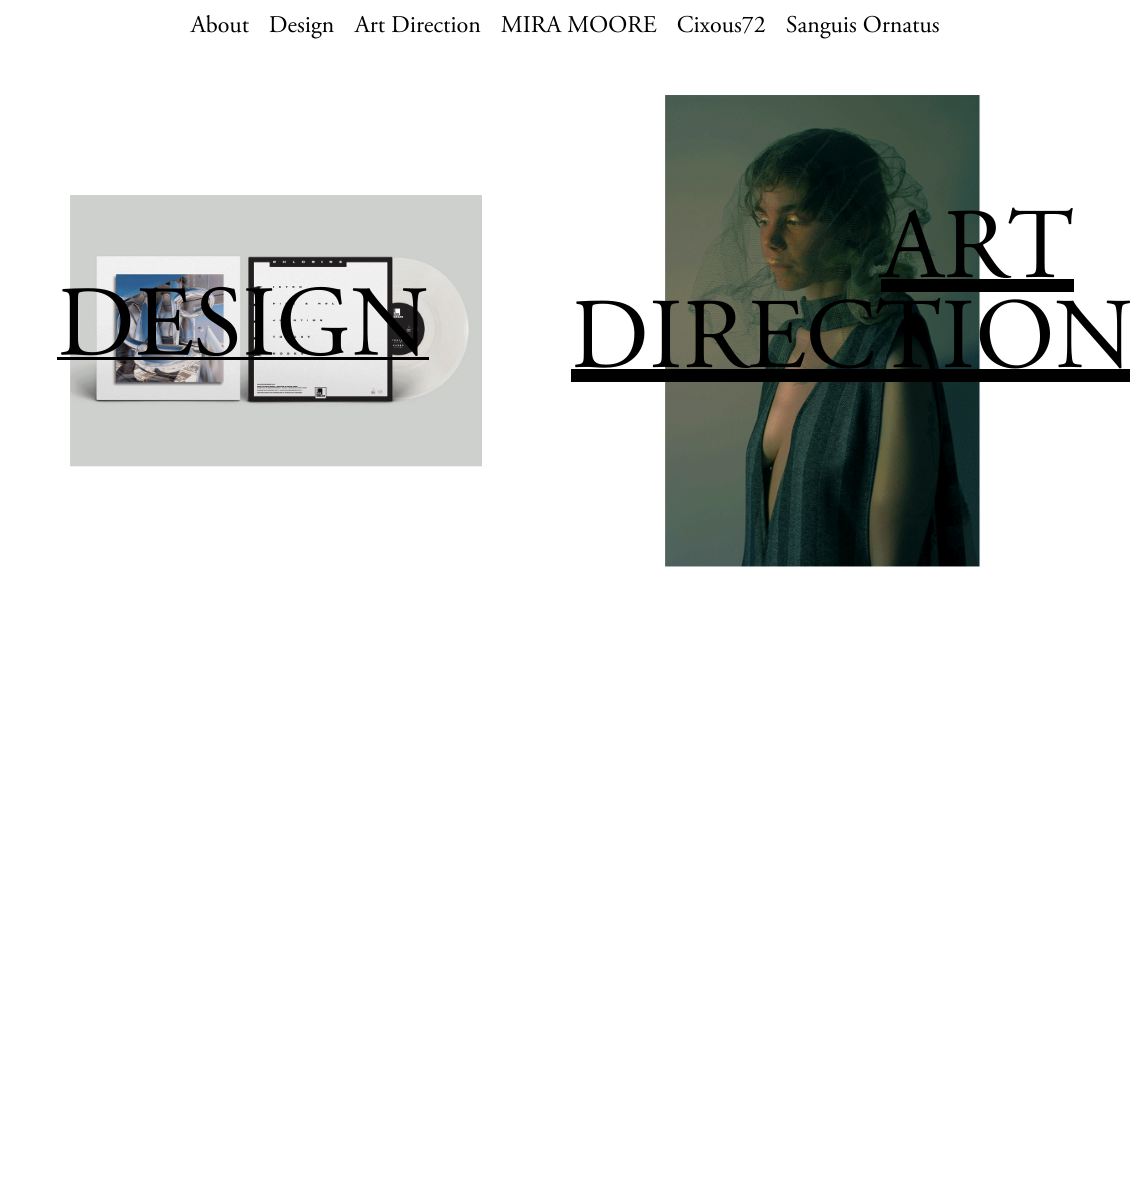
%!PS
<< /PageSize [1130 1201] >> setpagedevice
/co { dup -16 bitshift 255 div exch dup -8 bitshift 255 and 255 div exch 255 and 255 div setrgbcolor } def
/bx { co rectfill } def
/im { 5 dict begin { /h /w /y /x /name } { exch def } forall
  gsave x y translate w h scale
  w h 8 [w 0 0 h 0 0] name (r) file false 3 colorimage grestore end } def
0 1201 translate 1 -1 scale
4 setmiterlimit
0 0 1130 1201 16#FFFFFF bx
(media/1.raw) 190 14 59 19 im
(media/2.raw) 269 16 65 23 im
(media/3.raw) 354 15 127 18 im
(media/4.raw) 501 15 156 18 im
(media/5.raw) 677 15 88 19 im
(media/6.raw) 786 15 153 24 im
(media/7.raw) 70 195 412 272 im
(media/8.raw) 665 95 316 472 im
(media/9.raw) 61 286 366 71 im
57 357 372 3 16#000000 bx
(media/10.raw) 878 207 195 71 im
881 279 193 13 16#000000 bx
(media/11.raw) 575 297 555 72 im
571 369 559 13 16#000000 bx
showpage
